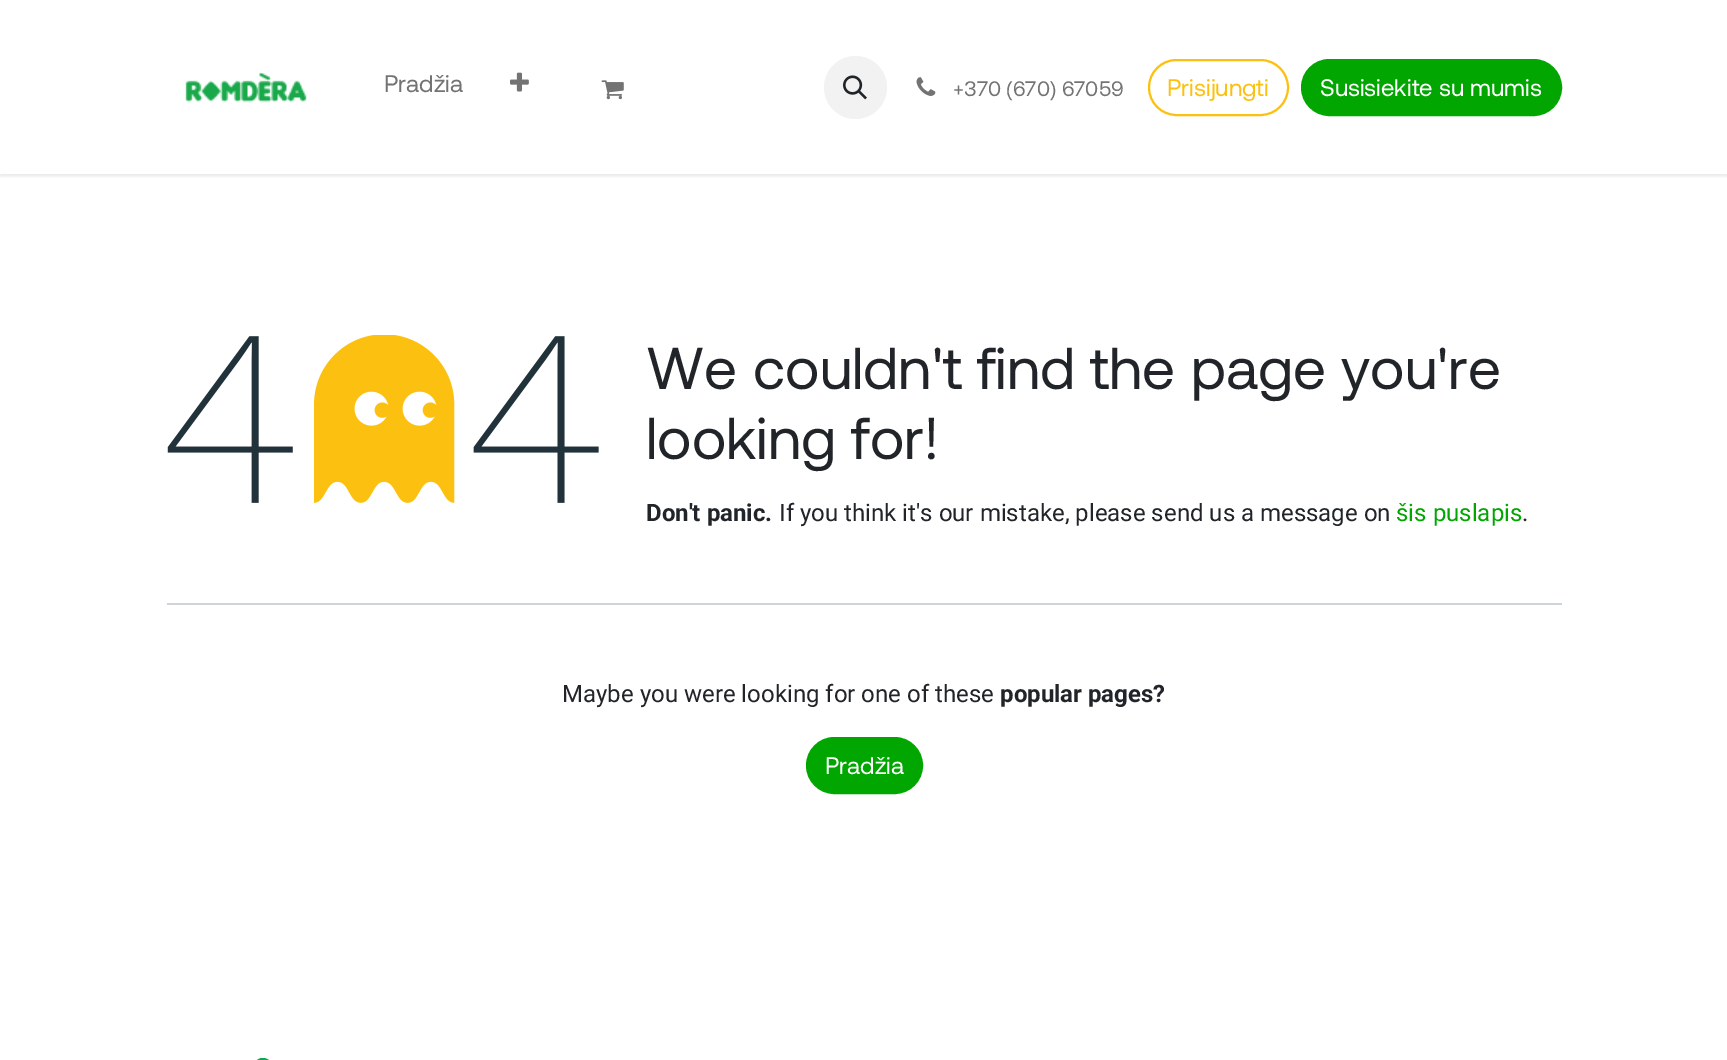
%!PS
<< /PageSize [1727 1060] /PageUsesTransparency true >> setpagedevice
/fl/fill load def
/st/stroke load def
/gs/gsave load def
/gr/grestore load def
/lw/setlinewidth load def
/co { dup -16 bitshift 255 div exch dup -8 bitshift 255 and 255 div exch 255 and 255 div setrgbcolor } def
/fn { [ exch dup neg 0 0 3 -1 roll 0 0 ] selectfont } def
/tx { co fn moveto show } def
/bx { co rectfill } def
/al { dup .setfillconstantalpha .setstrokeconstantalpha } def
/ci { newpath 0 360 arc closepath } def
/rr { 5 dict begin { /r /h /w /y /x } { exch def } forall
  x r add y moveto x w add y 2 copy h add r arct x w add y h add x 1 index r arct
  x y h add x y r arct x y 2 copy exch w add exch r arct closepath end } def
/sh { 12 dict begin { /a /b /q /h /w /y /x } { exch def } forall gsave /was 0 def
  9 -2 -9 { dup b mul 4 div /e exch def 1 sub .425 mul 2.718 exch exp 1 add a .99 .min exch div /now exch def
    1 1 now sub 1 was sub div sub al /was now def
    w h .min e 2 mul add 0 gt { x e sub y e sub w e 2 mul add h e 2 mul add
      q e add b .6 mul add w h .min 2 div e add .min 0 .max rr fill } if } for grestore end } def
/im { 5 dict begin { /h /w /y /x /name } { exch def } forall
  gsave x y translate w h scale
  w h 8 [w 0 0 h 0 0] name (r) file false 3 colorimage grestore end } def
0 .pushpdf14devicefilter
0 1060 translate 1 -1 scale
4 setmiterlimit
0 0 1727 1060 16#FFFFFF bx
gs
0 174 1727 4 rectclip
16#000000 co
0 2 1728 174 0 2 .1 sh
gr
(media/1.raw) 185 72 122 31 im
(media/2.raw) 510 72 19 20 im
(media/3.raw) 601 80 23 20 im
16#F2F2F2 co
855.5 87.5 31.5 ci fl
(media/4.raw) 843 75 24 25 im
(media/5.raw) 916 77 20 19 im
16#FCC110 co
2 lw
1149 60 139 55 27.5 rr st
16#01A601 co
1302 60 259 55 27.5 rr gs fl gr
st
(media/6.raw) 167 335 432 168 im
167 603 1395 2 16#CED4DA bx
16#01A601 co
807 738 115 55 27.5 rr gs fl gr
st
(media/7.raw) 256 1058 13 2 im
(Pradžia) 384 92 /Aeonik-Regular 24 16#737373 tx
(+370 \(670\) 67059) 953 96 /Aeonik-Regular 21 16#737373 tx
(Prisijungti) 1167 96 /Aeonik-Regular 24 16#FCC110 tx
(Susisiekite su mumis) 1320 96 /Aeonik-Regular 24 16#FFFFFF tx
(We couldn't find the page you're) 646 389 /Aeonik-Regular 58.9 16#212529 tx
(looking for!) 646 459 /Aeonik-Regular 58.9 16#212529 tx
(Don't panic.) 646 521 /Roboto-Bold 24 16#212529 tx
(If you think it's our mistake, please send us a message on) 779 521 /Roboto-Regular 24 16#212529 tx
(šis puslapis) 1396 521 /Roboto-Regular 24 16#01A601 tx
(.) 1522 521 /Roboto-Regular 24 16#212529 tx
(Maybe you were looking for one of these) 562 702 /Roboto-Regular 24 16#212529 tx
(popular pages?) 1000 702 /Roboto-Bold 24 16#212529 tx
(Pradžia) 825 774 /Aeonik-Regular 24 16#FFFFFF tx
.poppdf14devicefilter showpage
